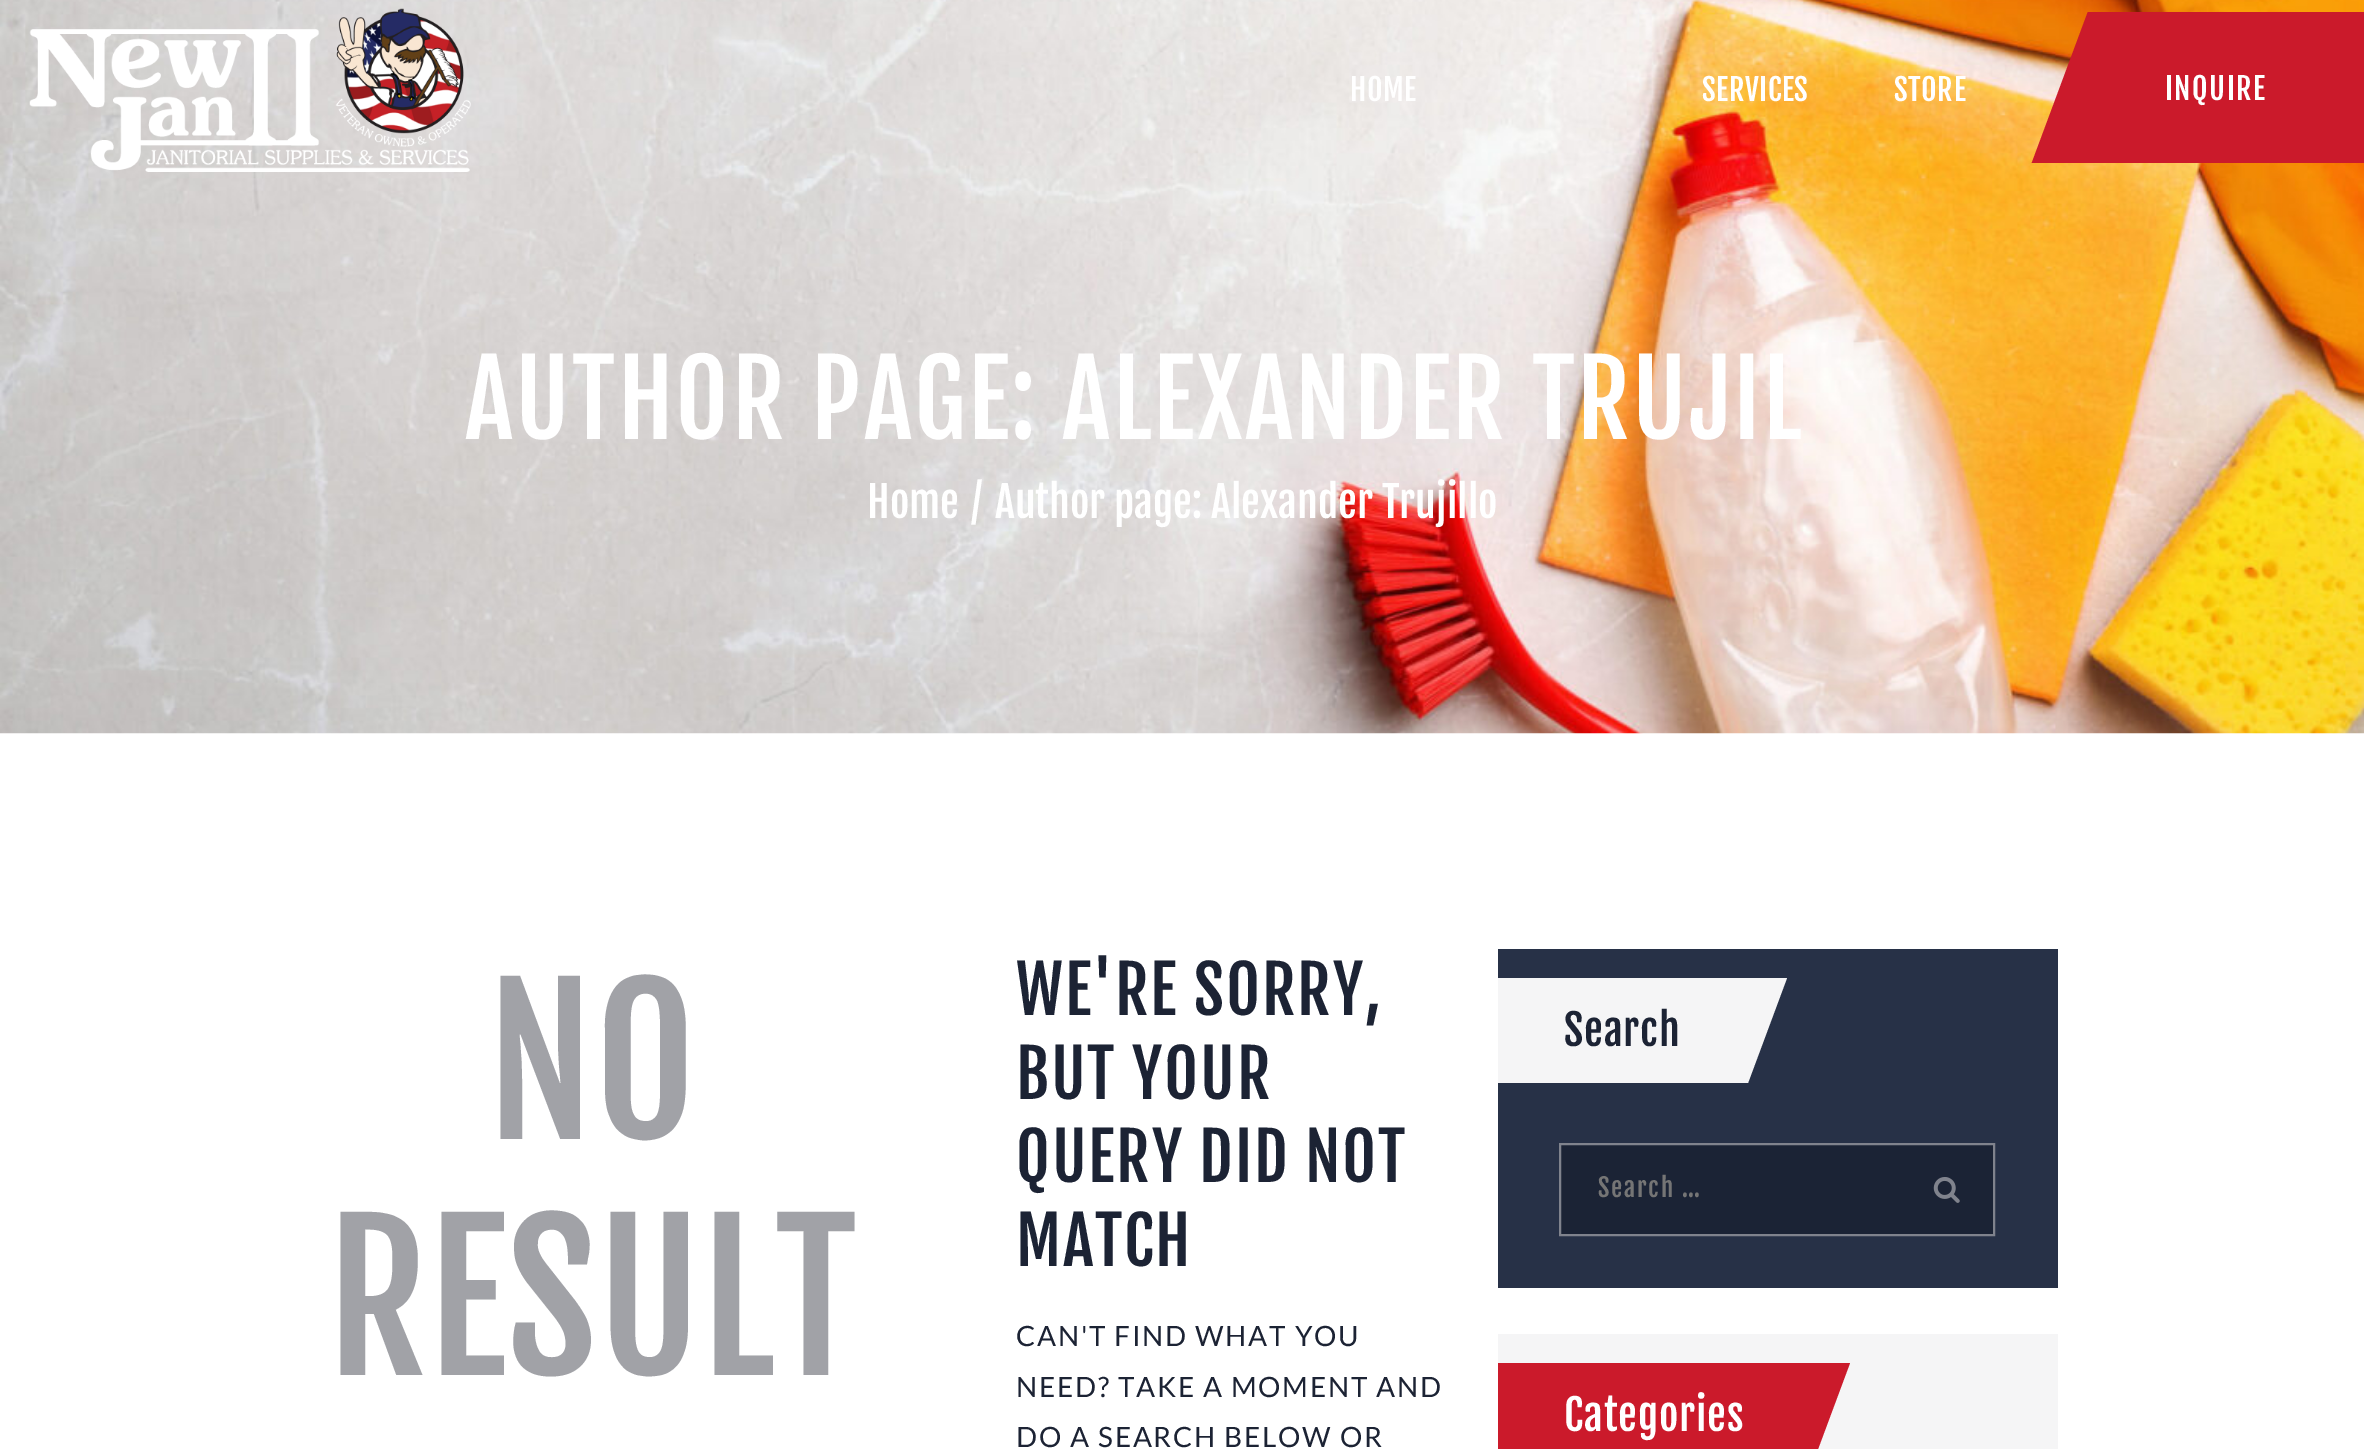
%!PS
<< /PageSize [2364 1449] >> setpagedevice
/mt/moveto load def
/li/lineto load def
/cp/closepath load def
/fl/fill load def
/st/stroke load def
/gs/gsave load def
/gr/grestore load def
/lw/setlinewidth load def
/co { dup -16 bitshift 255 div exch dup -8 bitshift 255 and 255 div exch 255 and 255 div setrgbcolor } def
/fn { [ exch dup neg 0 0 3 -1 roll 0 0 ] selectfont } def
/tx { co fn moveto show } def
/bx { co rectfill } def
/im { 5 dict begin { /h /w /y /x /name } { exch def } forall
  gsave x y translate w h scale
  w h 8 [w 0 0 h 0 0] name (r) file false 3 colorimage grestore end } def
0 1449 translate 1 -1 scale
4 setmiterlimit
0 0 2364 1449 16#FFFFFF bx
(media/1.raw) 0 0 2364 734 im
(media/2.raw) 29 8 442 167 im
gs
2028 12 336 151 rectclip
16#CB1A2B co
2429 173 mt 2028 173 li 2093 -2 li 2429 -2 li cp fl
gr
1498 949 560 339 16#273147 bx
16#F5F5F6 co
1498 978 mt 1787 978 li 1748 1083 li 1498 1083 li cp fl
16#1B2335 co
1560 1144 mt 1994 1144 li 1994 1235 li 1560 1235 li cp gs fl gr
16#80838D co
2 lw
st
(media/3.raw) 1933 1177 27 26 im
1498 1334 560 115 16#F5F5F6 bx
16#CB1A2B co
1498 1363 mt 1850 1363 li 1811 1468 li 1498 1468 li cp fl
/FjallaOne-Regular 30 fn
16#FFFFFF co
1350 101 mt .5 0 (HOME) ashow
1702 101 mt .5 0 (SERVICES) ashow
1894 101 mt .5 0 (STORE) ashow
2165 100 mt 1.5 0 (INQUIRE) ashow
/FjallaOne-Regular 102.75 fn
465 439 mt 2.25 0 (AUTHOR PAGE: ALEXANDER TRUJIL) ashow
(Home) 867 518 /FjallaOne-Regular 42 16#FFFFFF tx
(/) 971 518 /FjallaOne-Regular 42 16#FFFFFF tx
(Author page: Alexander Trujillo) 995 518 /FjallaOne-Regular 42 16#FFFFFF tx
(NO) 487 1139 /FjallaOne-Regular 196 16#A1A2A7 tx
(RESULT) 327 1375 /FjallaOne-Regular 196 16#A1A2A7 tx
/FjallaOne-Regular 65.25 fn
16#1C2334 co
1016 1015 mt 1.75 0 (WE'RE SORRY,) ashow
1016 1099 mt 1.75 0 (BUT YOUR) ashow
1016 1182 mt 1.75 0 (QUERY DID NOT) ashow
1016 1266 mt 1.75 0 (MATCH) ashow
/Lato-Regular 28 fn
1016 1346 mt 1.75 0 (CAN'T FIND WHAT YOU) ashow
1016 1397 mt 1.75 0 (NEED? TAKE A MOMENT AND) ashow
1016 1447 mt 1.75 0 (DO A SEARCH BELOW OR) ashow
/FjallaOne-Regular 42 fn
1564 1046 mt .9 0 (Search) ashow
/FjallaOne-Regular 25 fn
16#757575 co
1598 1197 mt 1.75 0 (Search …) ashow
/FjallaOne-Regular 42 fn
16#FFFFFF co
1564 1431 mt .9 0 (Categories) ashow
showpage
